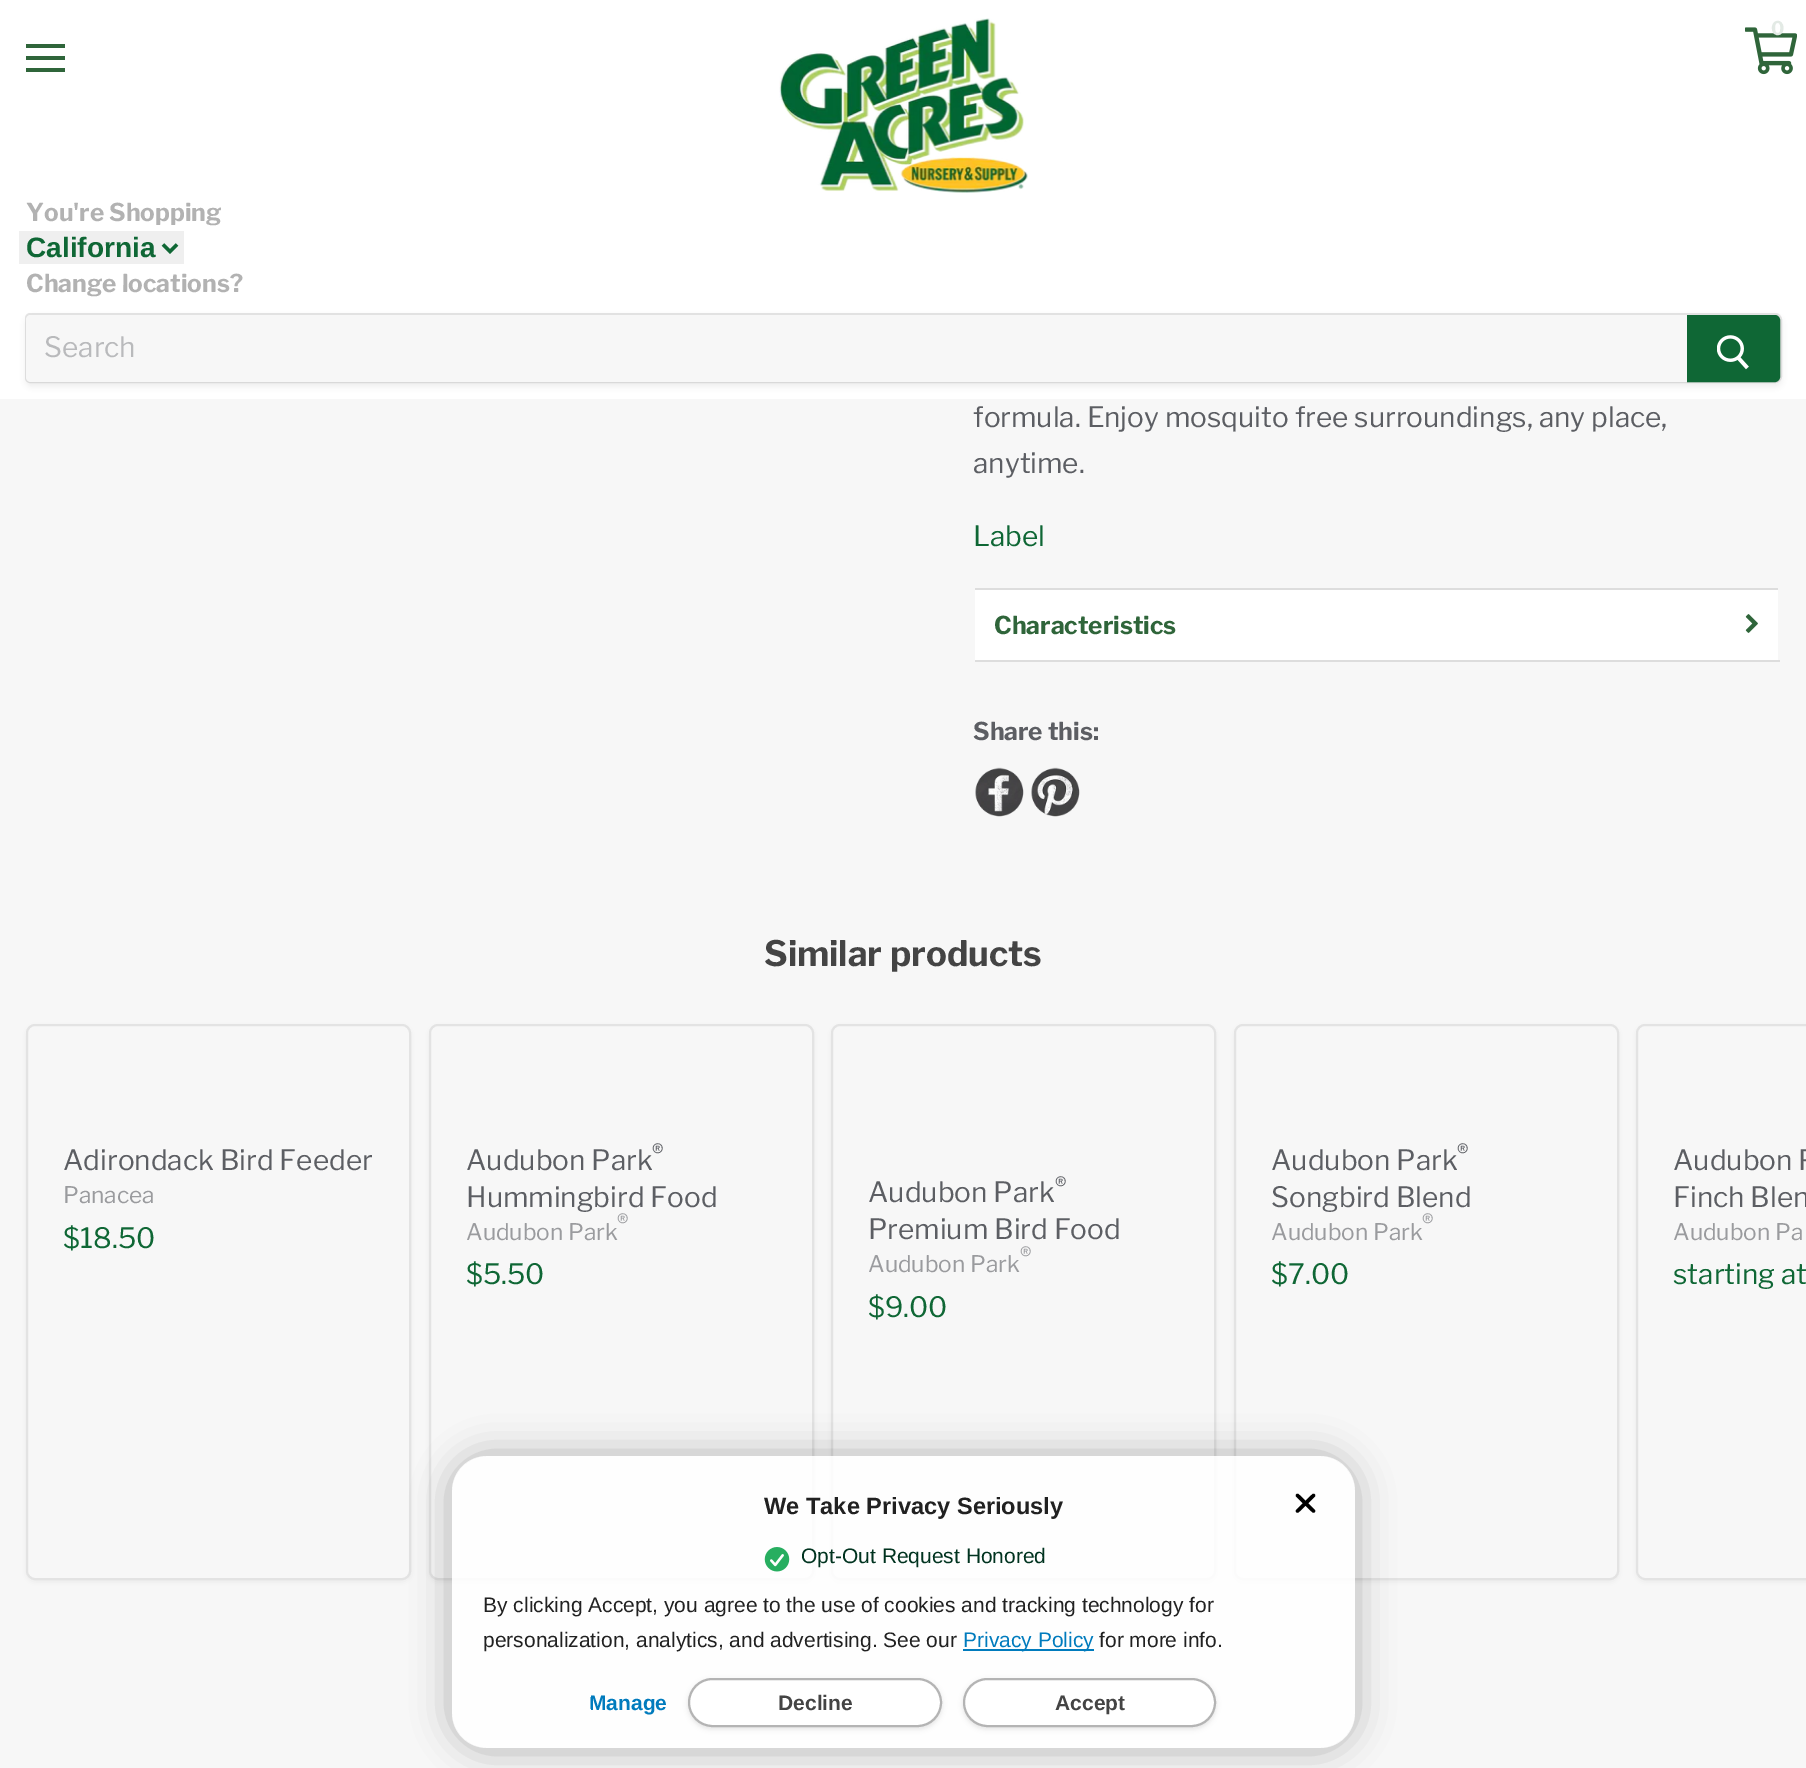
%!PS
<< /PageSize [1806 1768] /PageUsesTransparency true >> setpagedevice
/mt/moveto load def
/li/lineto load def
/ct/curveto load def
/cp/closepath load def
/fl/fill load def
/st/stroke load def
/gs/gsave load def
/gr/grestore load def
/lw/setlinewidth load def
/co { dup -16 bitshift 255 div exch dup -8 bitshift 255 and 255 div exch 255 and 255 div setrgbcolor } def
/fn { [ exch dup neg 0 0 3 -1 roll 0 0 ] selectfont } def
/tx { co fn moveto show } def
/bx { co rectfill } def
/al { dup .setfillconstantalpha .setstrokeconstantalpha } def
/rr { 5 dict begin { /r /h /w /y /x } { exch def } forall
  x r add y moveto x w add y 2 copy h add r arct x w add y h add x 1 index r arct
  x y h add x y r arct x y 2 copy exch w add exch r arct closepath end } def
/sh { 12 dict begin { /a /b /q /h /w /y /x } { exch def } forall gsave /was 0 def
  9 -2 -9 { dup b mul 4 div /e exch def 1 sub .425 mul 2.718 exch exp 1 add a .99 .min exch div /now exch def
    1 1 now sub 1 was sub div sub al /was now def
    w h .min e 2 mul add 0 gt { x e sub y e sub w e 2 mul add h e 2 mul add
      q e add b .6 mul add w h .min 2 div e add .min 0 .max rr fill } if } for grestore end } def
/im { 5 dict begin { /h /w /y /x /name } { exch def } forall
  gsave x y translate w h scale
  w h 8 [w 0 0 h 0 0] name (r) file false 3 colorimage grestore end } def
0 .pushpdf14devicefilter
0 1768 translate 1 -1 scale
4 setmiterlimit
0 0 1806 1768 16#F7F7F7 bx
0 0 1806 399 16#FFFFFF bx
(media/1.raw) 1745 27 52 48 im
26 44 39 4 16#2F653A bx
26 56 39 4 16#2F653A bx
26 68 39 4 16#2F653A bx
(media/2.raw) 779 18 249 175 im
19 231 165 33 16#EFEFEF bx
16#0F6735 co
3.5 lw
163 244.5 mt 170 251.5 li 177 244.5 li st
16#7B7B7B co
25 317 1757 70 7 2.5 .11 sh
0.2 al
2 lw
30 314 mt 1775 314 li 1778.5 314 1781 316.5 1781 320 ct 1781 376 li 1781 379.5 1778.5 382 1775 382 ct 30 382 li 28 382 26 380 26 378 ct 26 318 li 26 316 28 314 30 314 ct cp st
1 al
16#F7F7F7 co
31 315 mt 1687 315 li 1687 382 li 31 382 li 28 382 26 380 26 377 ct 26 320 li 26 317 28 315 31 315 ct cp fl
16#0F6735 co
1688 316 mt 1775 316 li 1777 316 1779 318 1779 320 ct 1779 377 li 1779 379 1777 381 1775 381 ct 1688 381 li cp gs fl gr
st
(media/3.raw) 1717 335 32 35 im
975 590 803 70 16#FFFFFF bx
973 588 807 2 16#DDDDDD bx
1778 588 2 2 16#F7F7F7 bx
973 660 807 2 16#DDDDDD bx
973 588 2 74 16#F7F7F7 bx
(media/4.raw) 1745 614 13 19 im
(media/5.raw) 975 767 49 50 im
(media/6.raw) 1031 767 49 50 im
16#7B7B7B co
26 1026 385 556 9 3.5 .11 sh
16#F7F7F7 co
27 1025 383 554 8 rr gs fl gr
16#E3E3E3 co
st
16#7B7B7B co
429 1026 385 556 9 3.5 .11 sh
16#F7F7F7 co
430 1025 383 554 8 rr gs fl gr
16#E3E3E3 co
st
16#7B7B7B co
831 1026 385 556 9 3.5 .11 sh
16#F7F7F7 co
832 1025 383 554 8 rr gs fl gr
16#E3E3E3 co
st
16#7B7B7B co
1234 1026 385 556 9 3.5 .11 sh
16#F7F7F7 co
1235 1025 383 554 8 rr gs fl gr
16#E3E3E3 co
st
16#7B7B7B co
1636 1026 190 556 9 3.5 .11 sh
16#F7F7F7 co
1645 1024 mt 1806 1024 li 1806 1580 li 1645 1580 li 1640 1580 1636 1576 1636 1571 ct 1636 1033 li 1636 1028 1640 1024 1645 1024 ct cp fl
16#E3E3E3 co
1637 1025 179 554 8 rr st
gs
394 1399 mt 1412 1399 li 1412 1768 li 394 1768 li cp 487 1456 mt 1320 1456 li 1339.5 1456 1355 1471.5 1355 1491 ct 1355 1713 li 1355 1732.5 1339.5 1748 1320 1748 ct 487 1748 li 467.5 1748 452 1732.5 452 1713 ct 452 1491 li 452 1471.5 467.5 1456 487 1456 ct cp eoclip newpath
16#000000 co
448 1453 910 299 39 17.5 .25 sh
gr
0.85 al
16#FFFFFF co
452 1456 903 292 35 rr fl
1 al
16#000000 co
3.5 lw
1 setlinecap
1 setlinejoin
1313.5 1495.5 mt 1297.5 1511 li 1297.5 1495.5 mt 1313.5 1511 li st
(media/7.raw) 764 1547 26 25 im
963 1649 131 2 16#007BBD bx
16#000000 co
688 1680 254 49 24.5 2.5 .1 sh
16#FFFFFF co
689 1679 252 47 23.5 rr gs fl gr
16#B4B4B4 co
2 lw
0 setlinecap
0 setlinejoin
st
16#000000 co
963 1680 253 49 24.5 2.5 .1 sh
16#FFFFFF co
964 1679 251 47 23.5 rr gs fl gr
16#B4B4B4 co
st
(0) 1771 35 /LibreFranklin-Bold 19 16#E3EAE5 tx
(You're Shopping) 26 221 /LibreFranklin-Bold 24.5 16#B2B2B2 tx
(California) 26 257 /LiberationSans-Bold 28 16#0F6735 tx
(Change locations?) 26 292 /LibreFranklin-Bold 24.5 16#B2B2B2 tx
(Search) 44 357 /LibreFranklin-Regular 28 16#B9BABC tx
(formula. Enjoy mosquito free surroundings, any place,) 973 427 /LibreFranklin-Regular 28 16#5C5E63 tx
(anytime.) 973 473 /LibreFranklin-Regular 28 16#5C5E63 tx
(Label) 973 546 /LibreFranklin-Regular 28 16#0F6735 tx
(Characteristics) 994 634 /LibreFranklin-Bold 24.5 16#2F653A tx
(Share this:) 973 740 /LibreFranklin-Bold 24.5 16#5C5E63 tx
(Similar products) 764 966 /LibreFranklin-Bold 35 16#444444 tx
(Adirondack Bird Feeder) 63 1170 /LibreFranklin-Regular 28 16#5C5E63 tx
(Panacea) 63 1203 /LibreFranklin-Regular 22.75 16#9A9B9E tx
($18.50) 63 1248 /LibreFranklin-Regular 28 16#0F6735 tx
(Audubon Park) 466 1170 /LibreFranklin-Regular 28 16#5C5E63 tx
(®) 652 1159 /LibreFranklin-Regular 21 16#5C5E63 tx
(Hummingbird Food) 466 1207 /LibreFranklin-Regular 28 16#5C5E63 tx
(®) 617 1229 /LibreFranklin-Regular 21 16#9A9B9E tx
(Audubon Park) 466 1240 /LibreFranklin-Regular 22.75 16#9A9B9E tx
($5.50) 466 1284 /LibreFranklin-Regular 28 16#0F6735 tx
(Audubon Park) 868 1202 /LibreFranklin-Regular 28 16#5C5E63 tx
(®) 1055 1192 /LibreFranklin-Regular 21 16#5C5E63 tx
(Premium Bird Food) 868 1239 /LibreFranklin-Regular 28 16#5C5E63 tx
(®) 1020 1262 /LibreFranklin-Regular 21 16#9A9B9E tx
(Audubon Park) 868 1272 /LibreFranklin-Regular 22.75 16#9A9B9E tx
($9.00) 868 1317 /LibreFranklin-Regular 28 16#0F6735 tx
(Audubon Park) 1271 1170 /LibreFranklin-Regular 28 16#5C5E63 tx
(®) 1457 1159 /LibreFranklin-Regular 21 16#5C5E63 tx
(Songbird Blend) 1271 1207 /LibreFranklin-Regular 28 16#5C5E63 tx
(®) 1422 1229 /LibreFranklin-Regular 21 16#9A9B9E tx
(Audubon Park) 1271 1240 /LibreFranklin-Regular 22.75 16#9A9B9E tx
($7.00) 1271 1284 /LibreFranklin-Regular 28 16#0F6735 tx
(Audubon P) 1673 1170 /LibreFranklin-Regular 28 16#5C5E63 tx
(Finch Blen) 1673 1207 /LibreFranklin-Regular 28 16#5C5E63 tx
(Audubon Pa) 1673 1240 /LibreFranklin-Regular 22.75 16#9A9B9E tx
(starting at) 1673 1284 /LibreFranklin-Regular 28 16#0F6735 tx
(We Take Privacy Seriously) 764 1514 /LiberationSans-Bold 23.6 16#212121 tx
(Opt-Out Request Honored) 801 1563 /LiberationSans-Regular 21 16#00331F tx
(By clicking Accept, you agree to the use of cookies and tracking technology for) 483 1612 /LiberationSans-Regular 21 16#212121 tx
(personalization, analytics, and advertising. See our) 483 1647 /LiberationSans-Regular 21 16#212121 tx
(Privacy Policy) 963 1647 /LiberationSans-Regular 21 16#007BBD tx
(for more info.) 1099 1647 /LiberationSans-Regular 21 16#212121 tx
gs
590 1680 77 46 23 rr clip newpath
(Manage) 589 1710 /LiberationSans-Bold 21 16#007BBD tx
gr
(Decline) 778 1710 /LiberationSans-Bold 21 16#444444 tx
(Accept) 1055 1710 /LiberationSans-Bold 21 16#444444 tx
.poppdf14devicefilter showpage
